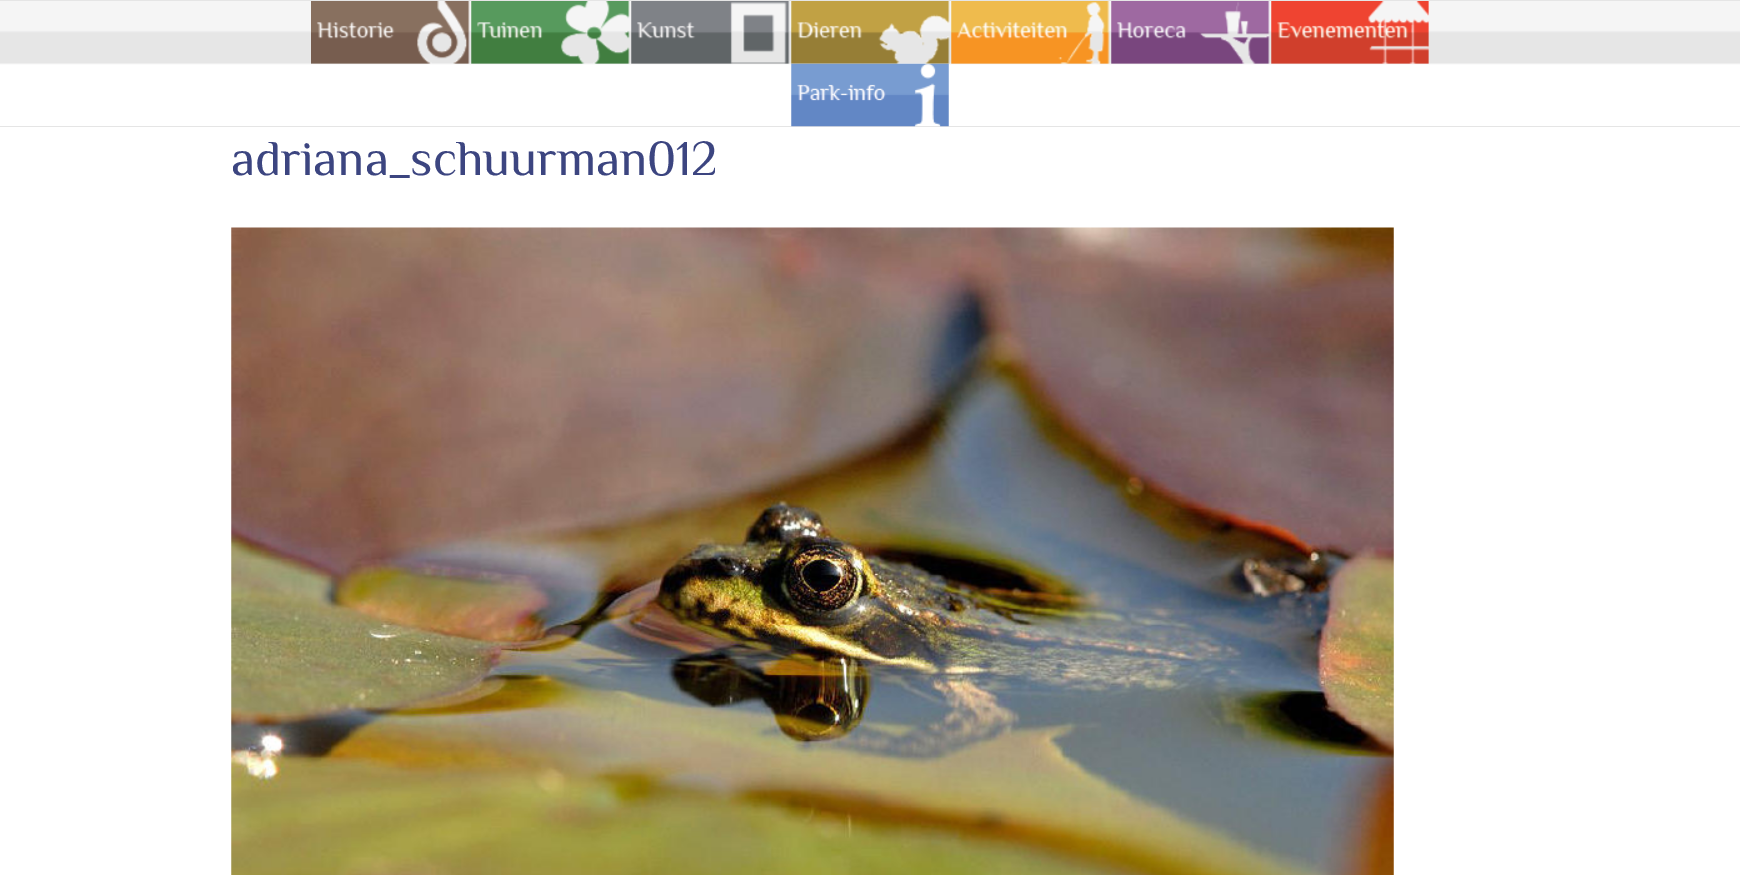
%!PS
<< /PageSize [1740 875] >> setpagedevice
/co { dup -16 bitshift 255 div exch dup -8 bitshift 255 and 255 div exch 255 and 255 div setrgbcolor } def
/fn { [ exch dup neg 0 0 3 -1 roll 0 0 ] selectfont } def
/tx { co fn moveto show } def
/bx { co rectfill } def
/im { 5 dict begin { /h /w /y /x /name } { exch def } forall
  gsave x y translate w h scale
  w h 8 [w 0 0 h 0 0] name (r) file false 3 colorimage grestore end } def
0 875 translate 1 -1 scale
4 setmiterlimit
0 0 1740 875 16#FFFFFF bx
0 0 1740 1 16#E5E5E5 bx
(media/1.raw) 0 1 1740 64 im
0 126 1740 1 16#E5E5E5 bx
(media/2.raw) 311 1 159 63 im
(media/3.raw) 471 1 159 63 im
(media/4.raw) 631 1 159 63 im
(media/5.raw) 791 1 159 63 im
(media/6.raw) 951 1 159 63 im
(media/7.raw) 1111 1 159 63 im
(media/8.raw) 1271 1 158 63 im
(media/9.raw) 791 63 158 64 im
(media/10.raw) 231 227 1163 648 im
(adriana_schuurman012) 231 175 /Philosopher-Regular 50 16#3C4580 tx
showpage
